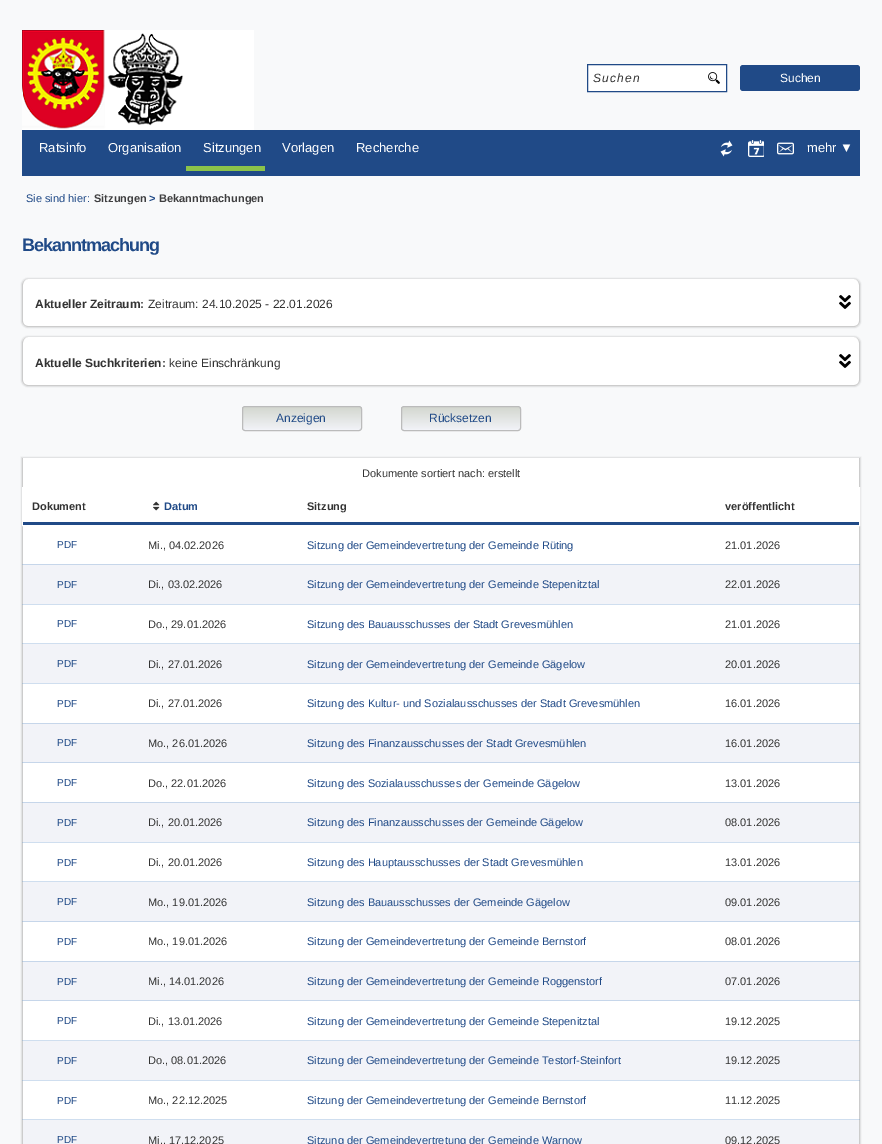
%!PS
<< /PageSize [882 1144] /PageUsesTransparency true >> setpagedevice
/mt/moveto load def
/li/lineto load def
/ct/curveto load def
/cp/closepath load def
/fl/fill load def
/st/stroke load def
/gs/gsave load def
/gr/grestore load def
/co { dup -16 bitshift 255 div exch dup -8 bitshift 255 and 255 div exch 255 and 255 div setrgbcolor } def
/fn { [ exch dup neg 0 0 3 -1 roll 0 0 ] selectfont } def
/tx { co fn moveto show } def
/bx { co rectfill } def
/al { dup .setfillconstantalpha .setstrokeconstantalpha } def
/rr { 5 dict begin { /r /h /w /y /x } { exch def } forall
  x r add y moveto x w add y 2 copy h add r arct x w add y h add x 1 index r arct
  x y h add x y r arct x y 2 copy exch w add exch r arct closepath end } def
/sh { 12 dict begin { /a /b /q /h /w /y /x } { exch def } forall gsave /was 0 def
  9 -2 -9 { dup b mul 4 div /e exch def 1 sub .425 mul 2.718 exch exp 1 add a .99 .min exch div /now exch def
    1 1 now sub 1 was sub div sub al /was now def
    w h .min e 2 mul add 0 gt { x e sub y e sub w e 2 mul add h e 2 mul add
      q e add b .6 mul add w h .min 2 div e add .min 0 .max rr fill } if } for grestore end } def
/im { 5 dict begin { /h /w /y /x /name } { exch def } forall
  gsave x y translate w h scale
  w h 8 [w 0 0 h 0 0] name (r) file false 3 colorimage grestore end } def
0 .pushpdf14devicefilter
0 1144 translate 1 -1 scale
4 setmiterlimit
0 0 882 1144 16#F8F9FA bx
(media/1.raw) 22 30 232 100 im
588 65 138 26 16#FFFFFF bx
(media/2.raw) 708 72 12 12 im
16#204A87 co
587.5 64.5 139 27 rectstroke
740 65 120 26 3 rr fl
22 130 838 46 16#204A87 bx
186 166 79 5 16#8BC34A bx
(media/3.raw) 720 140 13 17 im
(media/4.raw) 748 140 16 17 im
(media/5.raw) 777 142 17 13 im
16#000000 co
21 278 840 50 7 .5 .1 sh
16#FFFFFF co
22 279 838 48 6 rr fl
16#CCCCCC co
28 279 mt 854 279 li 857 279 860 282 860 285 ct 860 321 li 860 324 857 327 854 327 ct 28 327 li 25 327 22 324 22 321 ct 22 285 li 22 282 25 279 28 279 ct cp 28 279 mt 854 279 li 857 279 859 282 859 285 ct 859 321 li 859 324 857 326 854 326 ct 28 326 li 25 326 23 324 23 321 ct 23 285 li 23 282 25 279 28 279 ct cp eofill
(media/6.raw) 839 295 12 14 im
16#000000 co
21 336 840 51 7 .5 .1 sh
16#FFFFFF co
22 337 838 49 6 rr fl
16#CCCCCC co
28 337 mt 854 337 li 857 337 860 340 860 343 ct 860 380 li 860 383 857 386 854 386 ct 28 386 li 25 386 22 383 22 380 ct 22 343 li 22 340 25 337 28 337 ct cp 28 337 mt 854 337 li 857 337 859 340 859 343 ct 859 380 li 859 383 857 385 854 385 ct 28 385 li 25 385 23 383 23 380 ct 23 343 li 23 340 25 337 28 337 ct cp eofill
(media/6.raw) 839 354 12 14 im
gs
242 406 120 25 3 rr clip newpath
gs 242 407 mt 362 407 li 362 430 li 242 430 li cp clip newpath
<< /ShadingType 2 /ColorSpace /DeviceRGB /Coords [243 407 243 430] /Extend [true true] /Function << /FunctionType 2 /Domain [0 1] /C0 [.827 .843 .812] /C1 [.949 .953 .973] /N 1 >> >> shfill gr
gr
16#BBBBBB co
242.5 406.5 119 24 2.5 rr st
gs
401 406 120 25 3 rr clip newpath
gs 401 407 mt 521 407 li 521 430 li 401 430 li cp clip newpath
<< /ShadingType 2 /ColorSpace /DeviceRGB /Coords [402 407 402 430] /Extend [true true] /Function << /FunctionType 2 /Domain [0 1] /C0 [.827 .843 .812] /C1 [.949 .953 .973] /N 1 >> >> shfill gr
gr
401.5 406.5 119 24 2.5 rr st
16#000000 co
21 457 840 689 0 .5 .1 sh
23 458 836 661 16#FFFFFF bx
22 604 838 1 16#CFDEEF bx
22 683 838 1 16#CFDEEF bx
22 643 838 1 16#CFDEEF bx
22 842 838 1 16#CFDEEF bx
22 881 838 1 16#CFDEEF bx
22 1080 838 1 16#CFDEEF bx
22 1040 838 1 16#CFDEEF bx
22 1119 838 1 16#CFDEEF bx
859 458 1 686 16#CCCCCC bx
859 604 1 1 16#ADBDCD bx
859 564 1 1 16#ADBDCD bx
859 683 1 1 16#ADBDCD bx
859 643 1 1 16#ADBDCD bx
859 762 1 1 16#ADBDCD bx
859 723 1 1 16#ADBDCD bx
859 842 1 1 16#ADBDCD bx
859 802 1 1 16#ADBDCD bx
859 921 1 1 16#ADBDCD bx
859 881 1 1 16#ADBDCD bx
859 1000 1 1 16#ADBDCD bx
859 961 1 1 16#ADBDCD bx
859 1080 1 1 16#ADBDCD bx
859 1040 1 1 16#ADBDCD bx
859 1119 1 1 16#ADBDCD bx
22 458 1 686 16#CCCCCC bx
22 604 1 1 16#ADBDCD bx
22 564 1 1 16#ADBDCD bx
22 683 1 1 16#ADBDCD bx
22 643 1 1 16#ADBDCD bx
22 762 1 1 16#ADBDCD bx
22 723 1 1 16#ADBDCD bx
22 842 1 1 16#ADBDCD bx
22 802 1 1 16#ADBDCD bx
22 921 1 1 16#ADBDCD bx
22 881 1 1 16#ADBDCD bx
22 1000 1 1 16#ADBDCD bx
22 961 1 1 16#ADBDCD bx
22 1080 1 1 16#ADBDCD bx
22 1040 1 1 16#ADBDCD bx
22 1119 1 1 16#ADBDCD bx
16#FFFFFF co
22.5 487.5 837 38 rectstroke
23 522 836 3 16#204A87 bx
(media/7.raw) 153 501 7 10 im
23 565 836 39 16#F2F3F8 bx
23 564 836 1 16#C6D6EA bx
23 644 836 39 16#F2F3F8 bx
23 724 836 38 16#F2F3F8 bx
23 762 836 1 16#C6D6EA bx
23 723 836 1 16#C6D6EA bx
23 803 836 39 16#F2F3F8 bx
23 802 836 1 16#C6D6EA bx
23 882 836 39 16#F2F3F8 bx
23 921 836 1 16#C6D6EA bx
23 962 836 38 16#F2F3F8 bx
23 1000 836 1 16#C6D6EA bx
23 961 836 1 16#C6D6EA bx
23 1041 836 39 16#F2F3F8 bx
23 1120 836 24 16#F2F3F8 bx
/LiberationSans-Italic 12 fn
16#333333 co
593 82 mt 1.25 0 (Suchen) ashow
(Suchen) 780 82 /LiberationSans-Regular 12 16#FFFFFF tx
(Ratsinfo) 39 152 /LiberationSans-Regular 13 16#FFFFFF tx
(Organisation) 108 152 /LiberationSans-Regular 13 16#FFFFFF tx
(Sitzungen) 203 152 /LiberationSans-Regular 13 16#FFFFFF tx
(Vorlagen) 282 152 /LiberationSans-Regular 13 16#FFFFFF tx
(Recherche) 356 152 /LiberationSans-Regular 13 16#FFFFFF tx
(mehr ▼) 807 152 /LiberationSans-Regular 13 16#FFFFFF tx
(Sie sind hier:) 26 202 /LiberationSans-Regular 11 16#204A87 tx
(Sitzungen) 94 202 /LiberationSans-Bold 11 16#3E3E3F tx
(>) 149 202 /LiberationSans-Bold 11 16#204A87 tx
(Bekanntmachungen) 159 202 /LiberationSans-Bold 11 16#3E3E3F tx
/LiberationSans-Bold 18 fn
16#204A87 co
22 251 mt -1 0 (Bekanntmachung) ashow
(Aktueller Zeitraum:) 35 308 /LiberationSans-Bold 12 16#333333 tx
(Zeitraum: 24.10.2025 - 22.01.2026) 148 308 /LiberationSans-Regular 12 16#333333 tx
(Aktuelle Suchkriterien:) 35 367 /LiberationSans-Bold 12 16#333333 tx
(keine Einschränkung) 169 367 /LiberationSans-Regular 12 16#333333 tx
(Anzeigen) 276 422 /LiberationSans-Regular 12 16#204A87 tx
(Rücksetzen) 429 422 /LiberationSans-Regular 12 16#204A87 tx
(Dokumente sortiert nach: erstellt) 362 477 /LiberationSans-Regular 11 16#333333 tx
(Dokument) 32 510 /LiberationSans-Bold 11 16#333333 tx
(Datum) 164 510 /LiberationSans-Bold 11 16#204A87 tx
(Sitzung) 307 510 /LiberationSans-Bold 11 16#333333 tx
(veröffentlicht) 725 510 /LiberationSans-Bold 11 16#333333 tx
(PDF) 57 548 /LiberationSans-Regular 10 16#204A87 tx
(Mi., 04.02.2026) 148 549 /LiberationSans-Regular 11 16#333333 tx
(Sitzung der Gemeindevertretung der Gemeinde Rüting) 307 549 /LiberationSans-Regular 11 16#204A87 tx
(21.01.2026) 725 549 /LiberationSans-Regular 11 16#333333 tx
(PDF) 57 588 /LiberationSans-Regular 10 16#204A87 tx
(Di., 03.02.2026) 148 588 /LiberationSans-Regular 11 16#333333 tx
(Sitzung der Gemeindevertretung der Gemeinde Stepenitztal) 307 588 /LiberationSans-Regular 11 16#204A87 tx
(22.01.2026) 725 588 /LiberationSans-Regular 11 16#333333 tx
(PDF) 57 627 /LiberationSans-Regular 10 16#204A87 tx
(Do., 29.01.2026) 148 628 /LiberationSans-Regular 11 16#333333 tx
(Sitzung des Bauausschusses der Stadt Grevesmühlen) 307 628 /LiberationSans-Regular 11 16#204A87 tx
(21.01.2026) 725 628 /LiberationSans-Regular 11 16#333333 tx
(PDF) 57 667 /LiberationSans-Regular 10 16#204A87 tx
(Di., 27.01.2026) 148 668 /LiberationSans-Regular 11 16#333333 tx
(Sitzung der Gemeindevertretung der Gemeinde Gägelow) 307 668 /LiberationSans-Regular 11 16#204A87 tx
(20.01.2026) 725 668 /LiberationSans-Regular 11 16#333333 tx
(PDF) 57 707 /LiberationSans-Regular 10 16#204A87 tx
(Di., 27.01.2026) 148 707 /LiberationSans-Regular 11 16#333333 tx
(Sitzung des Kultur- und Sozialausschusses der Stadt Grevesmühlen) 307 707 /LiberationSans-Regular 11 16#204A87 tx
(16.01.2026) 725 707 /LiberationSans-Regular 11 16#333333 tx
(PDF) 57 746 /LiberationSans-Regular 10 16#204A87 tx
(Mo., 26.01.2026) 148 747 /LiberationSans-Regular 11 16#333333 tx
(Sitzung des Finanzausschusses der Stadt Grevesmühlen) 307 747 /LiberationSans-Regular 11 16#204A87 tx
(16.01.2026) 725 747 /LiberationSans-Regular 11 16#333333 tx
(PDF) 57 786 /LiberationSans-Regular 10 16#204A87 tx
(Do., 22.01.2026) 148 787 /LiberationSans-Regular 11 16#333333 tx
(Sitzung des Sozialausschusses der Gemeinde Gägelow) 307 787 /LiberationSans-Regular 11 16#204A87 tx
(13.01.2026) 725 787 /LiberationSans-Regular 11 16#333333 tx
(PDF) 57 826 /LiberationSans-Regular 10 16#204A87 tx
(Di., 20.01.2026) 148 826 /LiberationSans-Regular 11 16#333333 tx
(Sitzung des Finanzausschusses der Gemeinde Gägelow) 307 826 /LiberationSans-Regular 11 16#204A87 tx
(08.01.2026) 725 826 /LiberationSans-Regular 11 16#333333 tx
(PDF) 57 866 /LiberationSans-Regular 10 16#204A87 tx
(Di., 20.01.2026) 148 866 /LiberationSans-Regular 11 16#333333 tx
(Sitzung des Hauptausschusses der Stadt Grevesmühlen) 307 866 /LiberationSans-Regular 11 16#204A87 tx
(13.01.2026) 725 866 /LiberationSans-Regular 11 16#333333 tx
(PDF) 57 905 /LiberationSans-Regular 10 16#204A87 tx
(Mo., 19.01.2026) 148 906 /LiberationSans-Regular 11 16#333333 tx
(Sitzung des Bauausschusses der Gemeinde Gägelow) 307 906 /LiberationSans-Regular 11 16#204A87 tx
(09.01.2026) 725 906 /LiberationSans-Regular 11 16#333333 tx
(PDF) 57 945 /LiberationSans-Regular 10 16#204A87 tx
(Mo., 19.01.2026) 148 945 /LiberationSans-Regular 11 16#333333 tx
(Sitzung der Gemeindevertretung der Gemeinde Bernstorf) 307 945 /LiberationSans-Regular 11 16#204A87 tx
(08.01.2026) 725 945 /LiberationSans-Regular 11 16#333333 tx
(PDF) 57 985 /LiberationSans-Regular 10 16#204A87 tx
(Mi., 14.01.2026) 148 985 /LiberationSans-Regular 11 16#333333 tx
(Sitzung der Gemeindevertretung der Gemeinde Roggenstorf) 307 985 /LiberationSans-Regular 11 16#204A87 tx
(07.01.2026) 725 985 /LiberationSans-Regular 11 16#333333 tx
(PDF) 57 1024 /LiberationSans-Regular 10 16#204A87 tx
(Di., 13.01.2026) 148 1025 /LiberationSans-Regular 11 16#333333 tx
(Sitzung der Gemeindevertretung der Gemeinde Stepenitztal) 307 1025 /LiberationSans-Regular 11 16#204A87 tx
(19.12.2025) 725 1025 /LiberationSans-Regular 11 16#333333 tx
(PDF) 57 1064 /LiberationSans-Regular 10 16#204A87 tx
(Do., 08.01.2026) 148 1064 /LiberationSans-Regular 11 16#333333 tx
(Sitzung der Gemeindevertretung der Gemeinde Testorf-Steinfort) 307 1064 /LiberationSans-Regular 11 16#204A87 tx
(19.12.2025) 725 1064 /LiberationSans-Regular 11 16#333333 tx
(PDF) 57 1104 /LiberationSans-Regular 10 16#204A87 tx
(Mo., 22.12.2025) 148 1104 /LiberationSans-Regular 11 16#333333 tx
(Sitzung der Gemeindevertretung der Gemeinde Bernstorf) 307 1104 /LiberationSans-Regular 11 16#204A87 tx
(11.12.2025) 725 1104 /LiberationSans-Regular 11 16#333333 tx
(PDF) 57 1143 /LiberationSans-Regular 10 16#204A87 tx
(Mi., 17.12.2025) 148 1144 /LiberationSans-Regular 11 16#333333 tx
(Sitzung der Gemeindevertretung der Gemeinde Warnow) 307 1144 /LiberationSans-Regular 11 16#204A87 tx
(09.12.2025) 725 1144 /LiberationSans-Regular 11 16#333333 tx
.poppdf14devicefilter showpage
